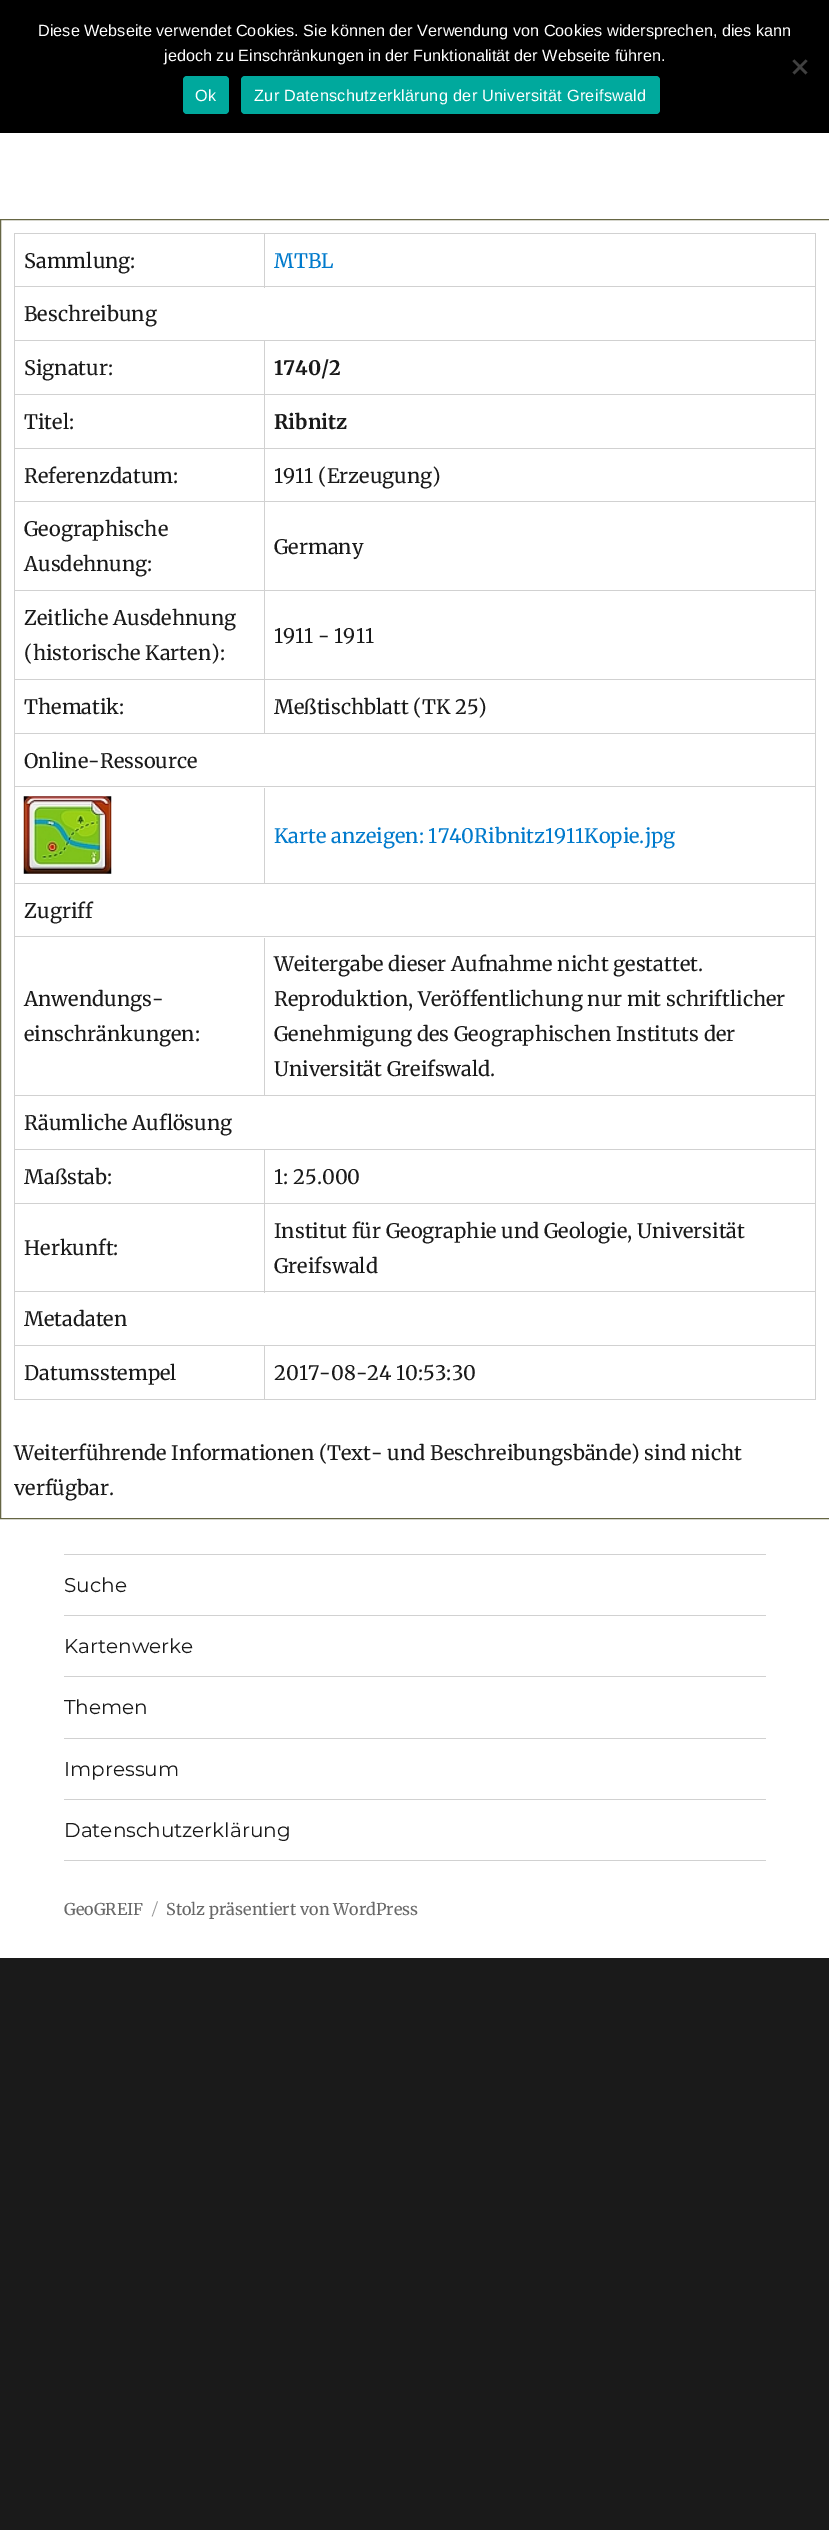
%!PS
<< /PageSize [829 2530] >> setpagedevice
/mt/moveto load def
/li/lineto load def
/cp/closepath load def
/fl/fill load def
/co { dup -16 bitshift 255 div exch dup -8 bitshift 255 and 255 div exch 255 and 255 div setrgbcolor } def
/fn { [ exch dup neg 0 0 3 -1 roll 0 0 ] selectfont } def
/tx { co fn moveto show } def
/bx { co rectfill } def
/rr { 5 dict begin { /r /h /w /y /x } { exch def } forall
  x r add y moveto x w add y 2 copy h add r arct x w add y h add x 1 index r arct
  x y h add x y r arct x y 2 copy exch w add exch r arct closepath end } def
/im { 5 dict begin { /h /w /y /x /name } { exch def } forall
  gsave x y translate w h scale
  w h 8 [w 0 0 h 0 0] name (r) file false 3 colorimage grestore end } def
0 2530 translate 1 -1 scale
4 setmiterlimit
0 0 829 2530 16#1A1A1A bx
0 0 829 133 16#000000 bx
16#404040 co
805.5 59.5 mt 807.5 61 li 794.5 74.5 li 792.5 72.5 li cp fl
792.5 61 mt 794.5 59.5 li 807.5 72.5 li 805.5 74.5 li cp fl
16#00A99D co
183 76 46 38 4 rr fl
241 76 419 38 4 rr fl
0 133 829 1825 16#FFFFFF bx
16#666644 co
.5 219.5 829 1299 rectstroke
14 233 802 1 16#D1D1D1 bx
14 233 1 1167 16#D1D1D1 bx
264 234 1 54 16#D1D1D1 bx
15 286 250 1 16#D1D1D1 bx
815 234 1 1166 16#D1D1D1 bx
265 286 551 1 16#D1D1D1 bx
15 340 801 1 16#D1D1D1 bx
264 341 1 393 16#D1D1D1 bx
15 394 801 1 16#D1D1D1 bx
15 448 801 1 16#D1D1D1 bx
15 501 801 1 16#D1D1D1 bx
15 590 801 1 16#D1D1D1 bx
15 679 801 1 16#D1D1D1 bx
15 733 801 1 16#D1D1D1 bx
15 786 801 1 16#D1D1D1 bx
264 788 1 96 16#D1D1D1 bx
15 883 801 1 16#D1D1D1 bx
(media/1.raw) 23 796 89 78 im
15 936 801 1 16#D1D1D1 bx
264 938 1 158 16#D1D1D1 bx
15 1095 801 1 16#D1D1D1 bx
15 1149 801 1 16#D1D1D1 bx
264 1150 1 143 16#D1D1D1 bx
15 1203 801 1 16#D1D1D1 bx
15 1291 801 1 16#D1D1D1 bx
15 1345 801 1 16#D1D1D1 bx
264 1346 1 54 16#D1D1D1 bx
15 1399 801 1 16#D1D1D1 bx
64 1860 702 1 16#D1D1D1 bx
64 1554 702 1 16#D1D1D1 bx
64 1615 702 1 16#D1D1D1 bx
64 1676 702 1 16#D1D1D1 bx
64 1738 702 1 16#D1D1D1 bx
64 1799 702 1 16#D1D1D1 bx
(Diese Webseite verwendet Cookies. Sie können der Verwendung von Cookies widersprechen, dies kann) 38 36 /LiberationSans-Regular 16.25 16#FFFFFF tx
(jedoch zu Einschränkungen in der Funktionalität der Webseite führen.) 164 61 /LiberationSans-Regular 16.25 16#FFFFFF tx
195 101 mt .3 0 (Ok) ashow
254 101 mt .3 0 (Zur Datenschutzerklärung der Universität Greifswald) ashow
(Sammlung:) 24 268 /Merriweather-Regular 20 16#1A1A1A tx
(MTBL) 274 268 /Merriweather-Regular 20 16#007ACC tx
(Beschreibung) 24 321 /Merriweather-Regular 20 16#1A1A1A tx
(Signatur:) 24 375 /Merriweather-Regular 20 16#1A1A1A tx
(1740/2) 274 375 /Merriweather-Bold 20 16#1A1A1A tx
(Titel:) 24 429 /Merriweather-Regular 20 16#1A1A1A tx
(Ribnitz) 274 429 /Merriweather-Bold 20 16#1A1A1A tx
(Referenzdatum:) 24 483 /Merriweather-Regular 20 16#1A1A1A tx
(1911 \(Erzeugung\)) 274 483 /Merriweather-Regular 20 16#1A1A1A tx
(Geographische) 24 536 /Merriweather-Regular 20 16#1A1A1A tx
(Ausdehnung:) 24 571 /Merriweather-Regular 20 16#1A1A1A tx
(Germany) 274 554 /Merriweather-Regular 20 16#1A1A1A tx
(Zeitliche Ausdehnung) 24 625 /Merriweather-Regular 20 16#1A1A1A tx
(\(historische Karten\):) 24 660 /Merriweather-Regular 20 16#1A1A1A tx
(1911 - 1911) 274 643 /Merriweather-Regular 20 16#1A1A1A tx
(Thematik:) 24 714 /Merriweather-Regular 20 16#1A1A1A tx
(Meßtischblatt \(TK 25\)) 274 714 /Merriweather-Regular 20 16#1A1A1A tx
(Online-Ressource) 24 768 /Merriweather-Regular 20 16#1A1A1A tx
(Karte anzeigen: 1740Ribnitz1911Kopie.jpg) 274 843 /Merriweather-Regular 20 16#007ACC tx
(Zugriff) 24 918 /Merriweather-Regular 20 16#1A1A1A tx
(Anwendungs-) 24 1006 /Merriweather-Regular 20 16#1A1A1A tx
(einschränkungen:) 24 1041 /Merriweather-Regular 20 16#1A1A1A tx
(Weitergabe dieser Aufnahme nicht gestattet.) 274 971 /Merriweather-Regular 20 16#1A1A1A tx
(Reproduktion, Veröffentlichung nur mit schriftlicher) 274 1006 /Merriweather-Regular 20 16#1A1A1A tx
(Genehmigung des Geographischen Instituts der) 274 1041 /Merriweather-Regular 20 16#1A1A1A tx
(Universität Greifswald.) 274 1076 /Merriweather-Regular 20 16#1A1A1A tx
(Räumliche Auflösung) 24 1130 /Merriweather-Regular 20 16#1A1A1A tx
(Maßstab:) 24 1184 /Merriweather-Regular 20 16#1A1A1A tx
(1: 25.000) 274 1184 /Merriweather-Regular 20 16#1A1A1A tx
(Herkunft:) 24 1255 /Merriweather-Regular 20 16#1A1A1A tx
(Institut für Geographie und Geologie, Universität) 274 1238 /Merriweather-Regular 20 16#1A1A1A tx
(Greifswald) 274 1273 /Merriweather-Regular 20 16#1A1A1A tx
(Metadaten) 24 1326 /Merriweather-Regular 20 16#1A1A1A tx
(Datumsstempel) 24 1380 /Merriweather-Regular 20 16#1A1A1A tx
(2017-08-24 10:53:30) 274 1380 /Merriweather-Regular 20 16#1A1A1A tx
(Weiterführende Informationen \(Text- und Beschreibungsbände\) sind nicht) 14 1460 /Merriweather-Regular 20 16#1A1A1A tx
(verfügbar.) 14 1495 /Merriweather-Regular 20 16#1A1A1A tx
(Suche) 64 1592 /Montserrat-Regular 20 16#1A1A1A tx
(Kartenwerke) 64 1653 /Montserrat-Regular 20 16#1A1A1A tx
(Themen) 64 1714 /Montserrat-Regular 20 16#1A1A1A tx
(Impressum) 64 1776 /Montserrat-Regular 20 16#1A1A1A tx
(Datenschutzerklärung) 64 1837 /Montserrat-Regular 20 16#1A1A1A tx
(GeoGREIF) 64 1915 /Merriweather-Regular 16.25 16#686868 tx
(/) 152 1915 /Montserrat-Regular 16.25 16#959595 tx
(Stolz präsentiert von WordPress) 166 1915 /Merriweather-Regular 16.25 16#686868 tx
showpage
